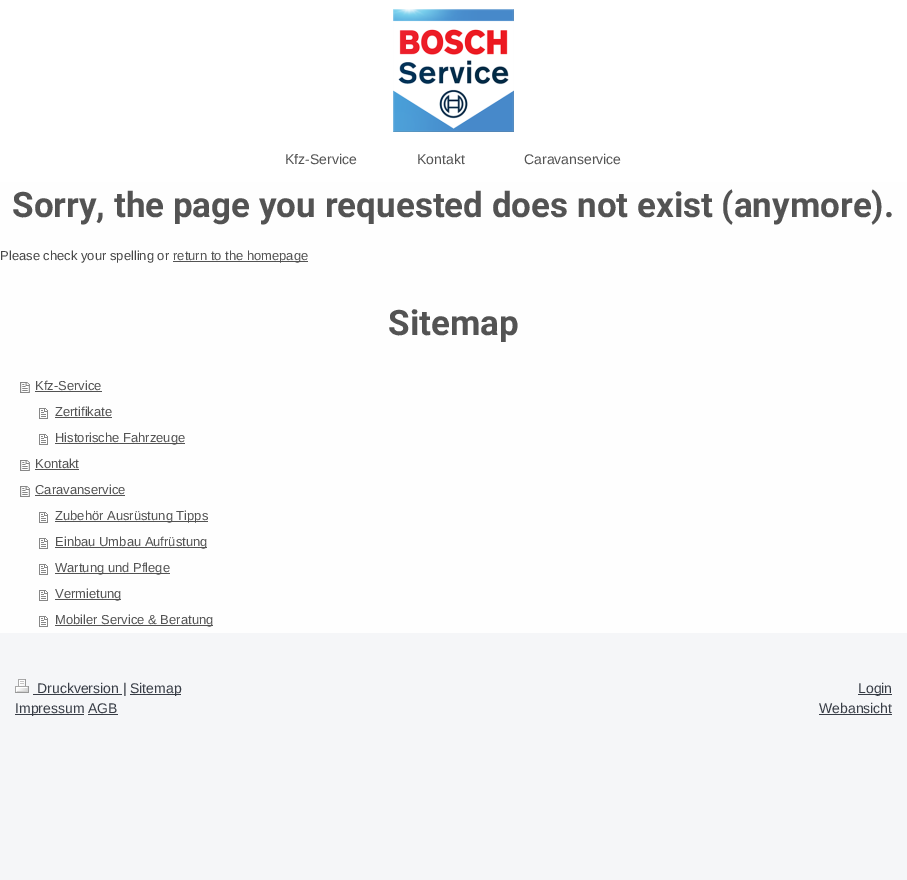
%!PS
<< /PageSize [907 880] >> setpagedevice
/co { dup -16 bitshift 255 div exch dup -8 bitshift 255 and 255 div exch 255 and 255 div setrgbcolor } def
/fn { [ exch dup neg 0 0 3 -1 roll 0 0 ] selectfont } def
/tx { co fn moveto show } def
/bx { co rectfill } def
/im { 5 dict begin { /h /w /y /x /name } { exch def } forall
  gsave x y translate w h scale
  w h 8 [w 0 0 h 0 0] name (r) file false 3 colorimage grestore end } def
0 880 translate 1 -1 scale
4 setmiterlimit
0 0 907 880 16#F5F6F8 bx
0 0 907 182 16#FFFFFF bx
(media/1.raw) 393 9 121 123 im
0 182 907 451 16#FEFEFE bx
173 261 135 1 16#535353 bx
(media/2.raw) 20 382 10 11 im
35 391 67 1 16#535353 bx
(media/3.raw) 39 408 9 11 im
55 417 57 1 16#535353 bx
(media/3.raw) 39 434 9 11 im
55 443 130 1 16#535353 bx
(media/2.raw) 20 460 10 11 im
35 469 44 1 16#535353 bx
(media/2.raw) 20 486 10 11 im
35 495 90 1 16#535353 bx
(media/3.raw) 39 512 9 11 im
55 521 153 1 16#535353 bx
(media/3.raw) 39 538 9 11 im
55 547 152 1 16#535353 bx
(media/3.raw) 39 564 9 11 im
55 573 115 1 16#535353 bx
(media/3.raw) 39 590 9 11 im
55 599 66 1 16#535353 bx
(media/3.raw) 39 616 9 11 im
55 625 158 1 16#535353 bx
(media/4.raw) 15 679 14 14 im
33 694 89 1 16#383D46 bx
130 694 51 1 16#383D46 bx
15 714 69 1 16#383D46 bx
88 714 30 1 16#383D46 bx
858 694 34 1 16#383D46 bx
819 714 73 1 16#383D46 bx
(Kfz-Service) 285 164 /LiberationSans-Regular 14 16#535353 tx
(Kontakt) 417 164 /LiberationSans-Regular 14 16#535353 tx
(Caravanservice) 524 164 /LiberationSans-Regular 14 16#535353 tx
(Sorry, the page you requested does not exist \(anymore\).) 12 217 /Roboto-Bold 35 16#535353 tx
(Please check your spelling or) 0 260 /LiberationSans-Regular 13 16#474747 tx
(return to the homepage) 173 260 /LiberationSans-Regular 13 16#535353 tx
(Sitemap) 388 335 /Roboto-Bold 35 16#535353 tx
(Kfz-Service) 35 390 /LiberationSans-Regular 13 16#535353 tx
(Zertifikate) 55 416 /LiberationSans-Regular 13 16#535353 tx
(Historische Fahrzeuge) 55 442 /LiberationSans-Regular 13 16#535353 tx
(Kontakt) 35 468 /LiberationSans-Regular 13 16#535353 tx
(Caravanservice) 35 494 /LiberationSans-Regular 13 16#535353 tx
(Zubehör Ausrüstung Tipps) 55 520 /LiberationSans-Regular 13 16#535353 tx
(Einbau Umbau Aufrüstung) 55 546 /LiberationSans-Regular 13 16#535353 tx
(Wartung und Pflege) 55 572 /LiberationSans-Regular 13 16#535353 tx
(Vermietung) 55 598 /LiberationSans-Regular 13 16#535353 tx
(Mobiler Service & Beratung) 55 624 /LiberationSans-Regular 13 16#535353 tx
(Druckversion |) 37 693 /LiberationSans-Regular 14 16#383D46 tx
(Sitemap) 130 693 /LiberationSans-Regular 14 16#383D46 tx
(Impressum AGB) 15 713 /LiberationSans-Regular 14 16#383D46 tx
(Login) 858 693 /LiberationSans-Regular 14 16#383D46 tx
(Webansicht) 819 713 /LiberationSans-Regular 14 16#383D46 tx
showpage
